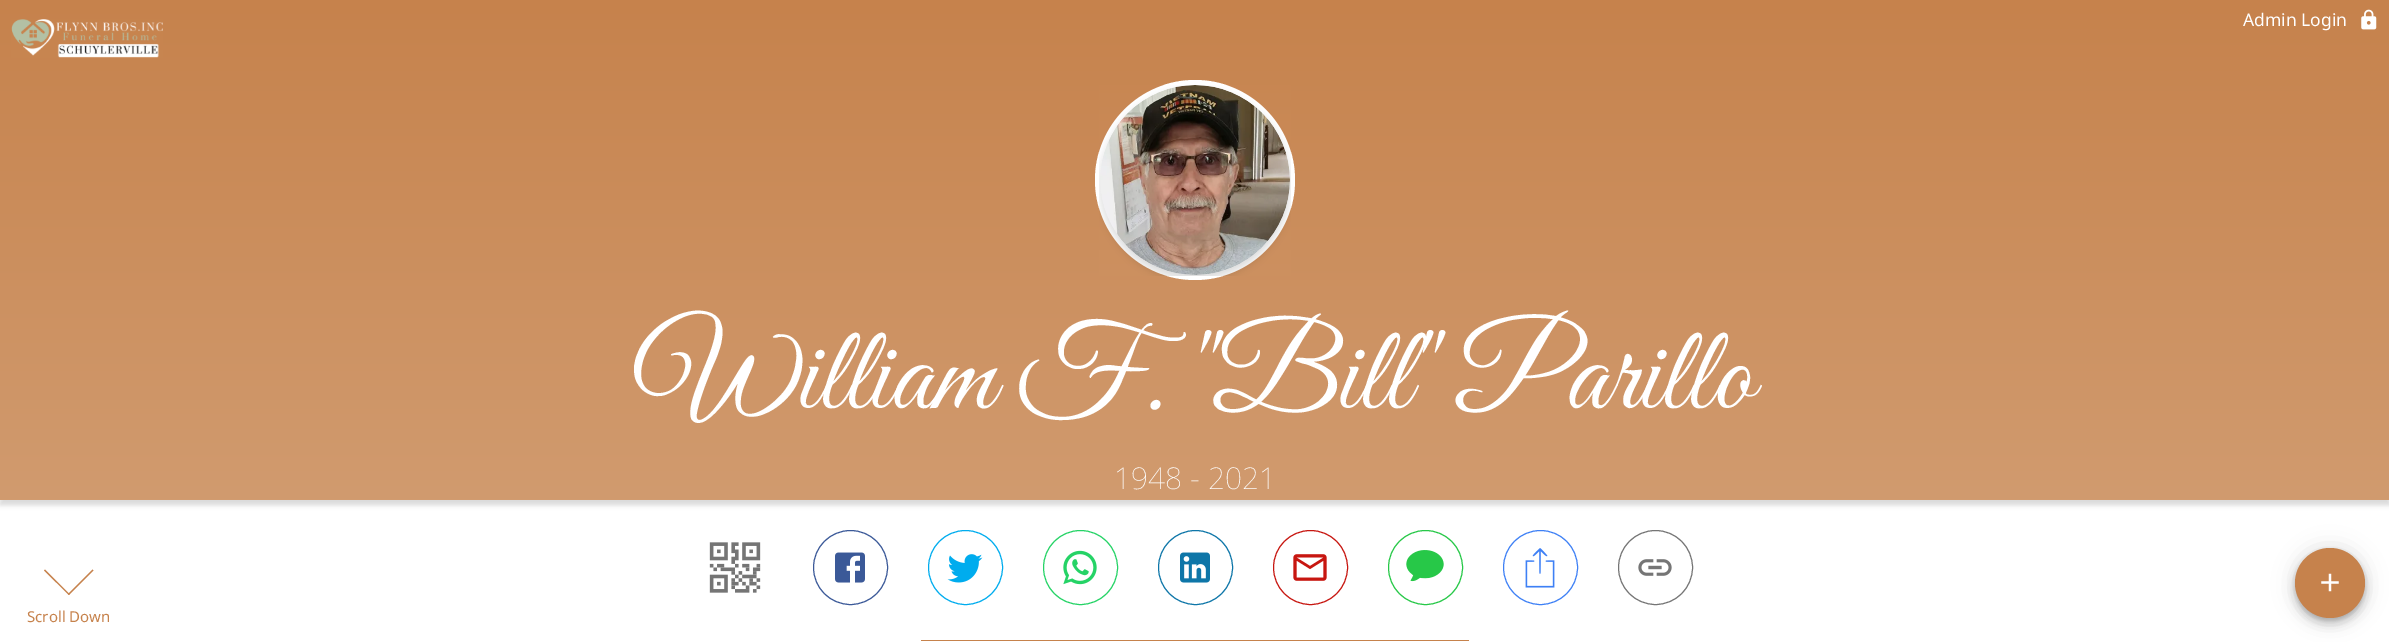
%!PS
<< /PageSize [2389 642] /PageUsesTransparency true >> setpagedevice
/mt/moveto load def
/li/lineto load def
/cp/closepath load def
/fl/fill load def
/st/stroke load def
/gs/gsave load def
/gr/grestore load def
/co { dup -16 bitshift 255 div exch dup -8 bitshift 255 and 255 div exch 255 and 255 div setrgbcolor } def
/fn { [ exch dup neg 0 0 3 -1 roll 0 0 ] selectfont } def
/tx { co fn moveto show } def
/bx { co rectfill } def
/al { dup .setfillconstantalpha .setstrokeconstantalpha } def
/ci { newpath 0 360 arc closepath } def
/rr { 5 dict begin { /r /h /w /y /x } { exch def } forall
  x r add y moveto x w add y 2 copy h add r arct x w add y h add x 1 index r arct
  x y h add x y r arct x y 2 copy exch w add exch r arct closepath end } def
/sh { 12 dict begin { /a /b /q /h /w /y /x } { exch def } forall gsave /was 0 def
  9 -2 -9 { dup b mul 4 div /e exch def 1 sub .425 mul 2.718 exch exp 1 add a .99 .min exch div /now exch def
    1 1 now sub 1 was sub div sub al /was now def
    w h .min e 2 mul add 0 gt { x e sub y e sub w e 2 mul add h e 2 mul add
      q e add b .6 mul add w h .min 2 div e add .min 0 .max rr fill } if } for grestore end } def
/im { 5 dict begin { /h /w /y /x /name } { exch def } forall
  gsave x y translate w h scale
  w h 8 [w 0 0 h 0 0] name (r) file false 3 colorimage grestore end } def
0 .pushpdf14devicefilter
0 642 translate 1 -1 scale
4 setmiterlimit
0 0 2389 642 16#FFFFFF bx
16#000000 co
0 5 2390 500 0 2.5 .15 sh
gs 0 0 mt 2389 0 li 2389 500 li 0 500 li cp clip newpath
<< /ShadingType 2 /ColorSpace /DeviceRGB /Coords [1195 0 1195 500] /Extend [true true] /Function << /FunctionType 2 /Domain [0 1] /C0 [.776 .51 .298] /C1 [.82 .608 .435] /N 1 >> >> shfill gr
(media/1.raw) 11 19 152 39 im
(media/2.raw) 2361 9 16 21 im
16#FFFFFF co
1195 180 100 ci fl
(media/3.raw) 1099 85 192 191 im
16#C6824C co
68 594 mt 92.5 569.5 li 93.5 570.5 li 69 595 li cp fl
44 570.5 mt 45 569.5 li 69.5 594 li 69 595 li cp fl
(media/4.raw) 709 542 52 51 im
16#3B5998 co
850.5 567.5 37 ci st
(media/5.raw) 835 552 30 31 im
16#00ACEE co
965.5 567.5 37 ci st
(media/6.raw) 947 554 36 29 im
16#25D366 co
1080.5 567.5 37 ci st
(media/7.raw) 1063 550 34 35 im
16#0E76A8 co
1195.5 567.5 37 ci st
(media/8.raw) 1180 552 30 31 im
16#C71610 co
1310.5 567.5 37 ci st
(media/9.raw) 1293 554 34 27 im
16#27C848 co
1425.5 567.5 37 ci st
(media/10.raw) 1406 550 38 32 im
16#3E80F5 co
1540.5 567.5 37 ci st
(media/11.raw) 1525 548 30 40 im
16#757575 co
1655.5 567.5 37 ci st
(media/12.raw) 1638 559 34 17 im
921 640 548 1 16#C6824C bx
16#000000 co
2295 549 70 70 35 11 .12 sh
2295 555 70 70 35 6 .14 sh
2296 553 68 67 33.5 3 .2 sh
16#C6824C co
2330 583 35 ci fl
(media/13.raw) 2321 573 18 19 im
(Admin Login) 2243 26 /NotoSans-Regular 17.5 16#FFFFFF tx
(William F. "Bill" Parillo) 636 408 /GreatVibes-Regular 120 16#FFFFFF tx
(1948 - 2021) 1114 489 /NotoSans-Thin 30 16#FFFFFF tx
(Scroll Down) 27 622 /NotoSans-Regular 15 16#C6824C tx
.poppdf14devicefilter showpage
